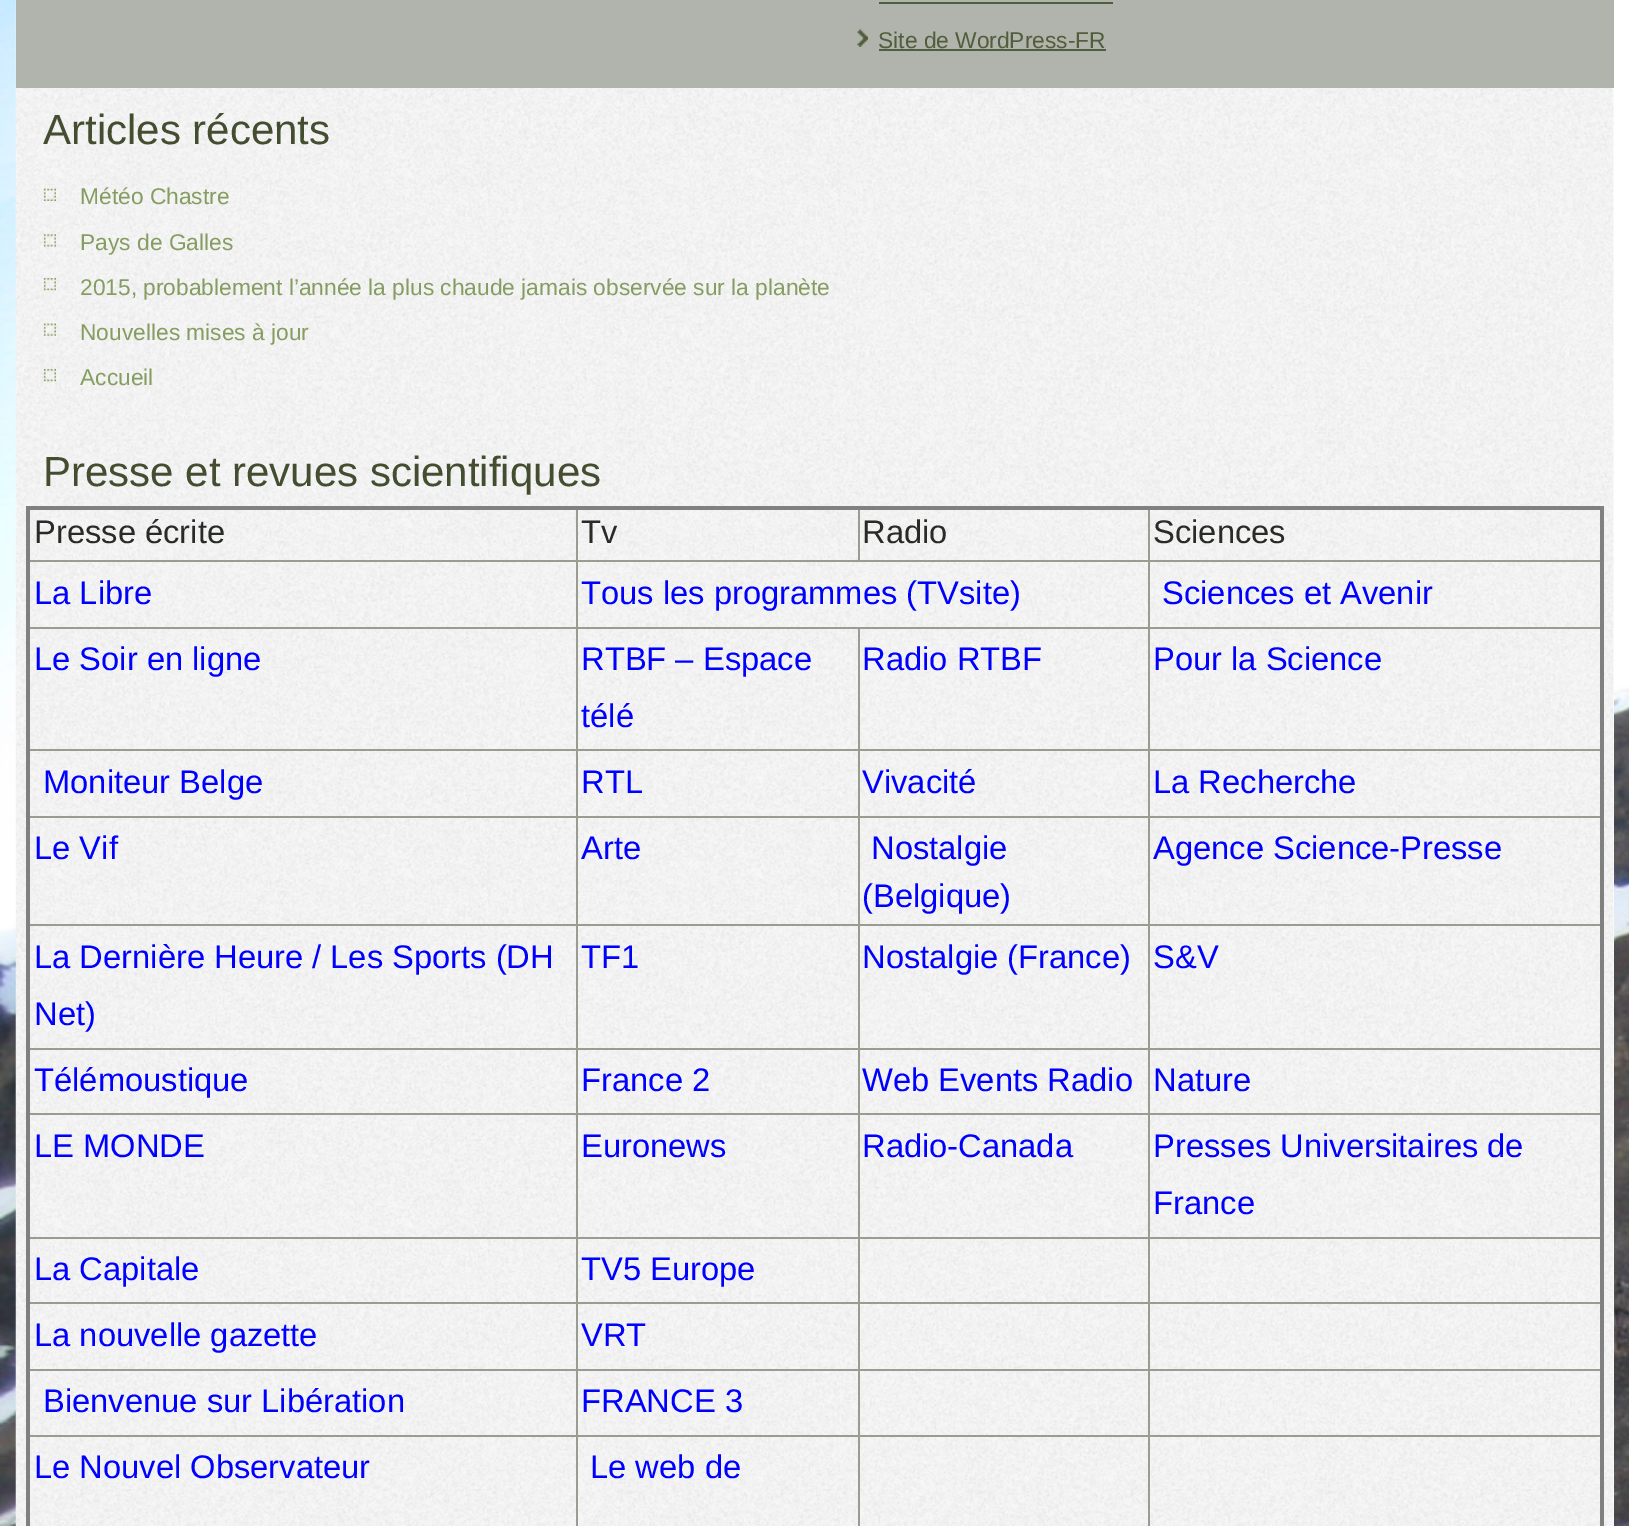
%!PS
<< /PageSize [1629 1526] >> setpagedevice
/co { dup -16 bitshift 255 div exch dup -8 bitshift 255 and 255 div exch 255 and 255 div setrgbcolor } def
/fn { [ exch dup neg 0 0 3 -1 roll 0 0 ] selectfont } def
/tx { co fn moveto show } def
/bx { co rectfill } def
/im { 5 dict begin { /h /w /y /x /name } { exch def } forall
  gsave x y translate w h scale
  w h 8 [w 0 0 h 0 0] name (r) file false 3 colorimage grestore end } def
0 1526 translate 1 -1 scale
4 setmiterlimit
0 0 1629 1526 16#FFFFFF bx
(media/1.raw) 0 0 1629 1526 im
1613 690 1 836 16#FFFFFF bx
(media/2.raw) 15 0 1599 1526 im
16 0 1598 88 16#B1B4AC bx
879 2 234 2 16#515E3B bx
(media/3.raw) 857 29 11 18 im
879 49 227 2 16#515E3B bx
(media/4.raw) 43 188 13 13 im
(media/5.raw) 43 234 13 13 im
(media/6.raw) 43 278 13 13 im
(media/7.raw) 43 323 13 13 im
(media/8.raw) 43 369 13 13 im
1148 560 453 2 16#989C91 bx
1148 627 453 2 16#989C91 bx
1148 749 453 2 16#989C91 bx
1148 816 453 2 16#989C91 bx
1148 924 453 2 16#989C91 bx
1148 1048 453 2 16#989C91 bx
1148 1113 453 2 16#989C91 bx
1148 1237 453 2 16#989C91 bx
1148 1302 453 2 16#989C91 bx
1148 1369 453 2 16#989C91 bx
1148 1435 453 2 16#989C91 bx
1148 1435 2 91 16#989C91 bx
858 1435 292 2 16#989C91 bx
1148 1369 2 68 16#989C91 bx
858 1369 292 2 16#989C91 bx
1148 1302 2 68 16#989C91 bx
858 1302 292 2 16#989C91 bx
1148 1237 2 67 16#989C91 bx
858 1237 292 2 16#989C91 bx
1148 1113 2 126 16#989C91 bx
858 1113 292 2 16#989C91 bx
1148 1048 2 67 16#989C91 bx
858 1048 292 2 16#989C91 bx
1148 924 2 126 16#989C91 bx
858 924 292 2 16#989C91 bx
1148 816 2 110 16#989C91 bx
858 816 292 2 16#989C91 bx
1148 749 2 68 16#989C91 bx
858 749 292 2 16#989C91 bx
1148 627 2 124 16#989C91 bx
858 627 292 2 16#989C91 bx
1148 560 2 68 16#989C91 bx
576 560 574 2 16#989C91 bx
858 1435 2 91 16#989C91 bx
576 1435 283 2 16#989C91 bx
858 1369 2 68 16#989C91 bx
576 1369 283 2 16#989C91 bx
858 1302 2 68 16#989C91 bx
576 1302 283 2 16#989C91 bx
858 1237 2 67 16#989C91 bx
576 1237 283 2 16#989C91 bx
858 1113 2 126 16#989C91 bx
576 1113 283 2 16#989C91 bx
858 1048 2 67 16#989C91 bx
576 1048 283 2 16#989C91 bx
858 924 2 126 16#989C91 bx
576 924 283 2 16#989C91 bx
858 816 2 110 16#989C91 bx
576 816 283 2 16#989C91 bx
858 749 2 68 16#989C91 bx
576 749 283 2 16#989C91 bx
858 627 2 124 16#989C91 bx
576 627 283 2 16#989C91 bx
576 1435 2 91 16#989C91 bx
28 1435 550 2 16#989C91 bx
576 1369 2 68 16#989C91 bx
28 1369 550 2 16#989C91 bx
576 1302 2 68 16#989C91 bx
28 1302 550 2 16#989C91 bx
576 1237 2 67 16#989C91 bx
28 1237 550 2 16#989C91 bx
576 1113 2 126 16#989C91 bx
28 1113 550 2 16#989C91 bx
576 1048 2 67 16#989C91 bx
28 1048 550 2 16#989C91 bx
576 924 2 126 16#989C91 bx
28 924 550 2 16#989C91 bx
576 816 2 110 16#989C91 bx
28 816 550 2 16#989C91 bx
576 749 2 68 16#989C91 bx
28 749 550 2 16#989C91 bx
576 627 2 124 16#989C91 bx
28 627 550 2 16#989C91 bx
576 560 2 68 16#989C91 bx
28 560 550 2 16#989C91 bx
576 508 2 54 16#989C91 bx
858 508 2 54 16#989C91 bx
1148 508 2 54 16#989C91 bx
26 506 1577 4 16#808080 bx
1600 506 4 1020 16#808080 bx
26 506 4 1020 16#808080 bx
(Site de WordPress-FR) 878 48 /LiberationSans-Regular 22.75 16#515E3B tx
(Articles récents) 43 144 /Arimo-Regular 42 16#434E31 tx
(Météo Chastre) 80 204 /LiberationSans-Regular 22.75 16#869D62 tx
(Pays de Galles) 80 250 /LiberationSans-Regular 22.75 16#869D62 tx
(2015, probablement l’année la plus chaude jamais observée sur la planète) 80 295 /LiberationSans-Regular 22.75 16#869D62 tx
(Nouvelles mises à jour) 80 340 /LiberationSans-Regular 22.75 16#869D62 tx
(Accueil) 80 385 /LiberationSans-Regular 22.75 16#869D62 tx
(Presse et revues scientifiques) 43 486 /Arimo-Regular 42 16#434E31 tx
(Presse écrite) 34 543 /LiberationSans-Regular 32.7 16#292B27 tx
(Tv) 581 543 /LiberationSans-Regular 32.7 16#292B27 tx
(Radio) 862 543 /LiberationSans-Regular 32.7 16#292B27 tx
(Sciences) 1153 543 /LiberationSans-Regular 32.7 16#292B27 tx
(La Libre) 34 604 /LiberationSans-Regular 32.7 16#0000FF tx
(Tous les programmes \(TVsite\)) 581 604 /LiberationSans-Regular 32.7 16#0000FF tx
(Sciences et Avenir) 1162 604 /LiberationSans-Regular 32.7 16#0000FF tx
(Le Soir en ligne) 34 670 /LiberationSans-Regular 32.7 16#0000FF tx
(RTBF – Espace) 581 670 /LiberationSans-Regular 32.7 16#0000FF tx
(télé) 581 727 /LiberationSans-Regular 32.7 16#0000FF tx
(Radio RTBF) 862 670 /LiberationSans-Regular 32.7 16#0000FF tx
(Pour la Science) 1153 670 /LiberationSans-Regular 32.7 16#0000FF tx
(Moniteur Belge) 43 793 /LiberationSans-Regular 32.7 16#0000FF tx
(RTL) 581 793 /LiberationSans-Regular 32.7 16#0000FF tx
(Vivacité) 862 793 /LiberationSans-Regular 32.7 16#0000FF tx
(La Recherche) 1153 793 /LiberationSans-Regular 32.7 16#0000FF tx
(Le Vif) 34 859 /LiberationSans-Regular 32.7 16#0000FF tx
(Arte) 581 859 /LiberationSans-Regular 32.7 16#0000FF tx
(Nostalgie) 871 859 /LiberationSans-Regular 32.7 16#0000FF tx
(\(Belgique\)) 862 907 /LiberationSans-Regular 32.7 16#0000FF tx
(Agence Science-Presse) 1153 859 /LiberationSans-Regular 32.7 16#0000FF tx
(La Dernière Heure / Les Sports \(DH) 34 968 /LiberationSans-Regular 32.7 16#0000FF tx
(Net\)) 34 1025 /LiberationSans-Regular 32.7 16#0000FF tx
(TF1) 581 968 /LiberationSans-Regular 32.7 16#0000FF tx
(Nostalgie \(France\)) 862 968 /LiberationSans-Regular 32.7 16#0000FF tx
(S&V) 1153 968 /LiberationSans-Regular 32.7 16#0000FF tx
(Télémoustique) 34 1091 /LiberationSans-Regular 32.7 16#0000FF tx
(France 2) 581 1091 /LiberationSans-Regular 32.7 16#0000FF tx
(Web Events Radio) 862 1091 /LiberationSans-Regular 32.7 16#0000FF tx
(Nature) 1153 1091 /LiberationSans-Regular 32.7 16#0000FF tx
(LE MONDE) 34 1157 /LiberationSans-Regular 32.7 16#0000FF tx
(Euronews) 581 1157 /LiberationSans-Regular 32.7 16#0000FF tx
(Radio-Canada) 862 1157 /LiberationSans-Regular 32.7 16#0000FF tx
(Presses Universitaires de) 1153 1157 /LiberationSans-Regular 32.7 16#0000FF tx
(France) 1153 1214 /LiberationSans-Regular 32.7 16#0000FF tx
(La Capitale) 34 1280 /LiberationSans-Regular 32.7 16#0000FF tx
(TV5 Europe) 581 1280 /LiberationSans-Regular 32.7 16#0000FF tx
(La nouvelle gazette) 34 1346 /LiberationSans-Regular 32.7 16#0000FF tx
(VRT) 581 1346 /LiberationSans-Regular 32.7 16#0000FF tx
(Bienvenue sur Libération) 43 1412 /LiberationSans-Regular 32.7 16#0000FF tx
(FRANCE 3) 581 1412 /LiberationSans-Regular 32.7 16#0000FF tx
(Le Nouvel Observateur) 34 1478 /LiberationSans-Regular 32.7 16#0000FF tx
(Le web de) 590 1478 /LiberationSans-Regular 32.7 16#0000FF tx
showpage
